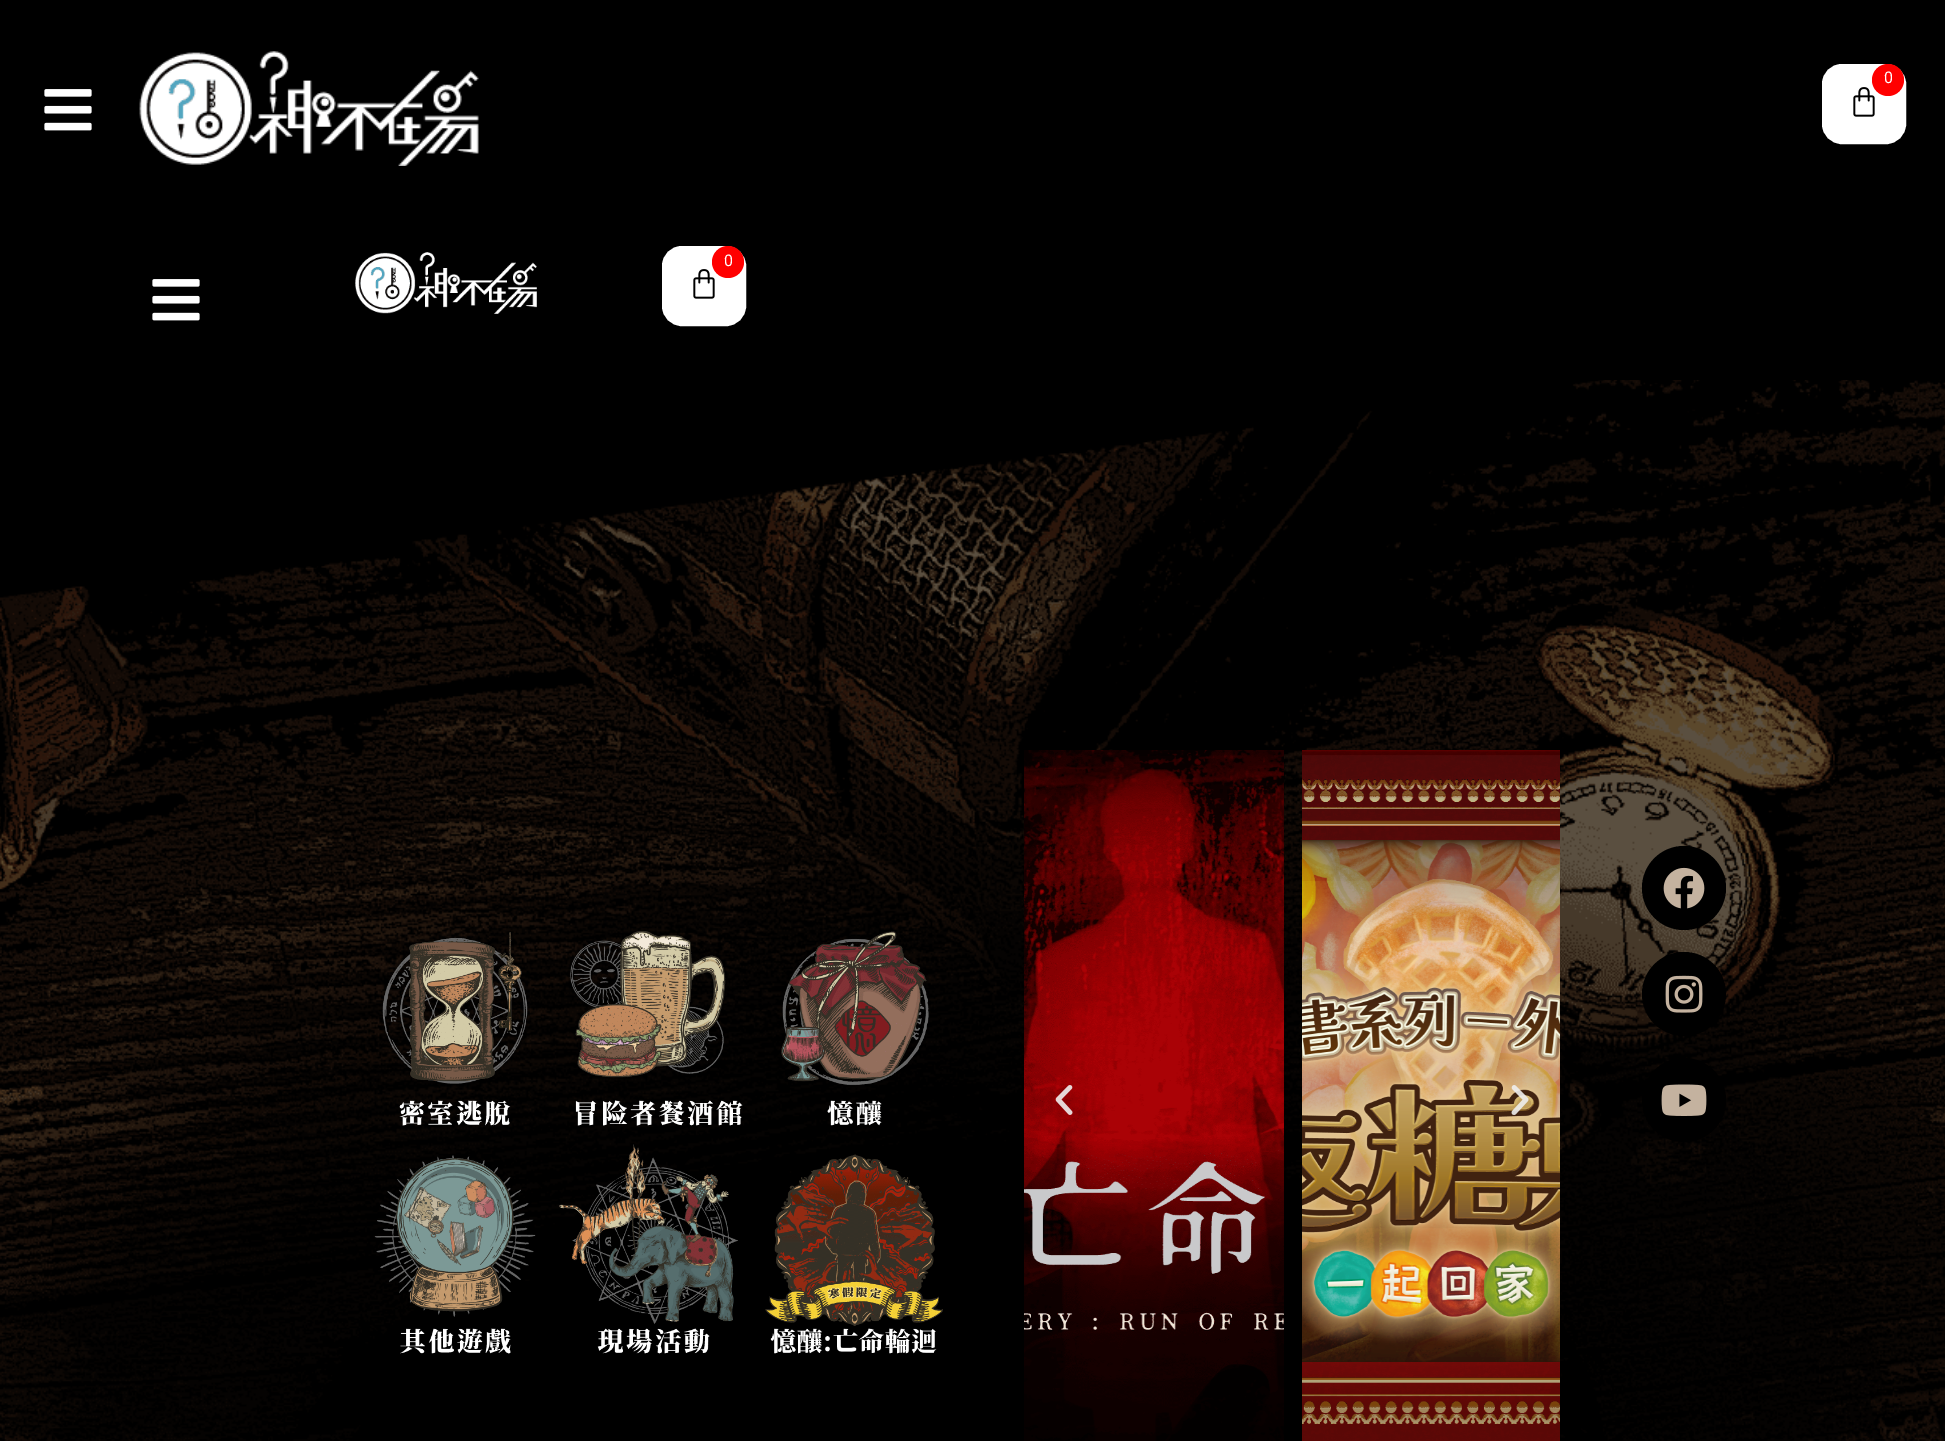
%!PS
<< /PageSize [1945 1441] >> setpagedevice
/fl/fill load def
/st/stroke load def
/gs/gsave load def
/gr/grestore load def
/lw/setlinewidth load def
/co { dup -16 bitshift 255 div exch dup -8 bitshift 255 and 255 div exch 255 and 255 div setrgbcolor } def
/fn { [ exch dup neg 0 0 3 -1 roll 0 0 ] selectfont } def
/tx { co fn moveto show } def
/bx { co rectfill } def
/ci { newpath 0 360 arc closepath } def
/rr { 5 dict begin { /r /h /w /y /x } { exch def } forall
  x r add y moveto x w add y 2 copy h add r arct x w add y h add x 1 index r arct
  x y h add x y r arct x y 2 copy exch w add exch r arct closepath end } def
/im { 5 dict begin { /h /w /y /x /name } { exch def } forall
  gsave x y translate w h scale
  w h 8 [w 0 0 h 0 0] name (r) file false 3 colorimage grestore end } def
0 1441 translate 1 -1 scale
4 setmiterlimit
0 0 1945 1441 16#000000 bx
(media/1.raw) 44 89 48 42 im
(media/2.raw) 139 51 340 115 im
16#FFFFFF co
1825 67 78 74 17 rr gs fl gr
6 lw
st
(media/3.raw) 1853 87 22 30 im
16#FF0000 co
1888 80 16 ci fl
(media/4.raw) 355 252 182 62 im
16#FFFFFF co
665 249 78 74 17 rr gs fl gr
st
(media/3.raw) 693 269 22 30 im
16#FF0000 co
728 262 16 ci fl
(media/1.raw) 152 279 48 42 im
(media/5.raw) 0 380 1945 1061 im
(media/6.raw) 381 932 147 194 im
(media/7.raw) 568 930 175 196 im
(media/8.raw) 781 931 148 195 im
(media/9.raw) 374 1155 162 199 im
(media/10.raw) 559 1144 179 210 im
(media/11.raw) 765 1154 178 200 im
(media/12.raw) 1024 750 260 691 im
(media/13.raw) 1302 750 258 691 im
(media/14.raw) 1055 1085 18 30 im
(media/15.raw) 1511 1085 18 30 im
16#000000 co
1684 888 42 ci fl
(media/16.raw) 1663 867 42 42 im
1684 994 42 ci fl
(media/17.raw) 1665 975 38 38 im
1684 1100 42 ci fl
(media/18.raw) 1661 1084 46 32 im
(0) 1884 83 /Roboto-Regular 16 16#FFFFFF tx
(0) 724 266 /Roboto-Regular 16 16#FFFFFF tx
showpage
